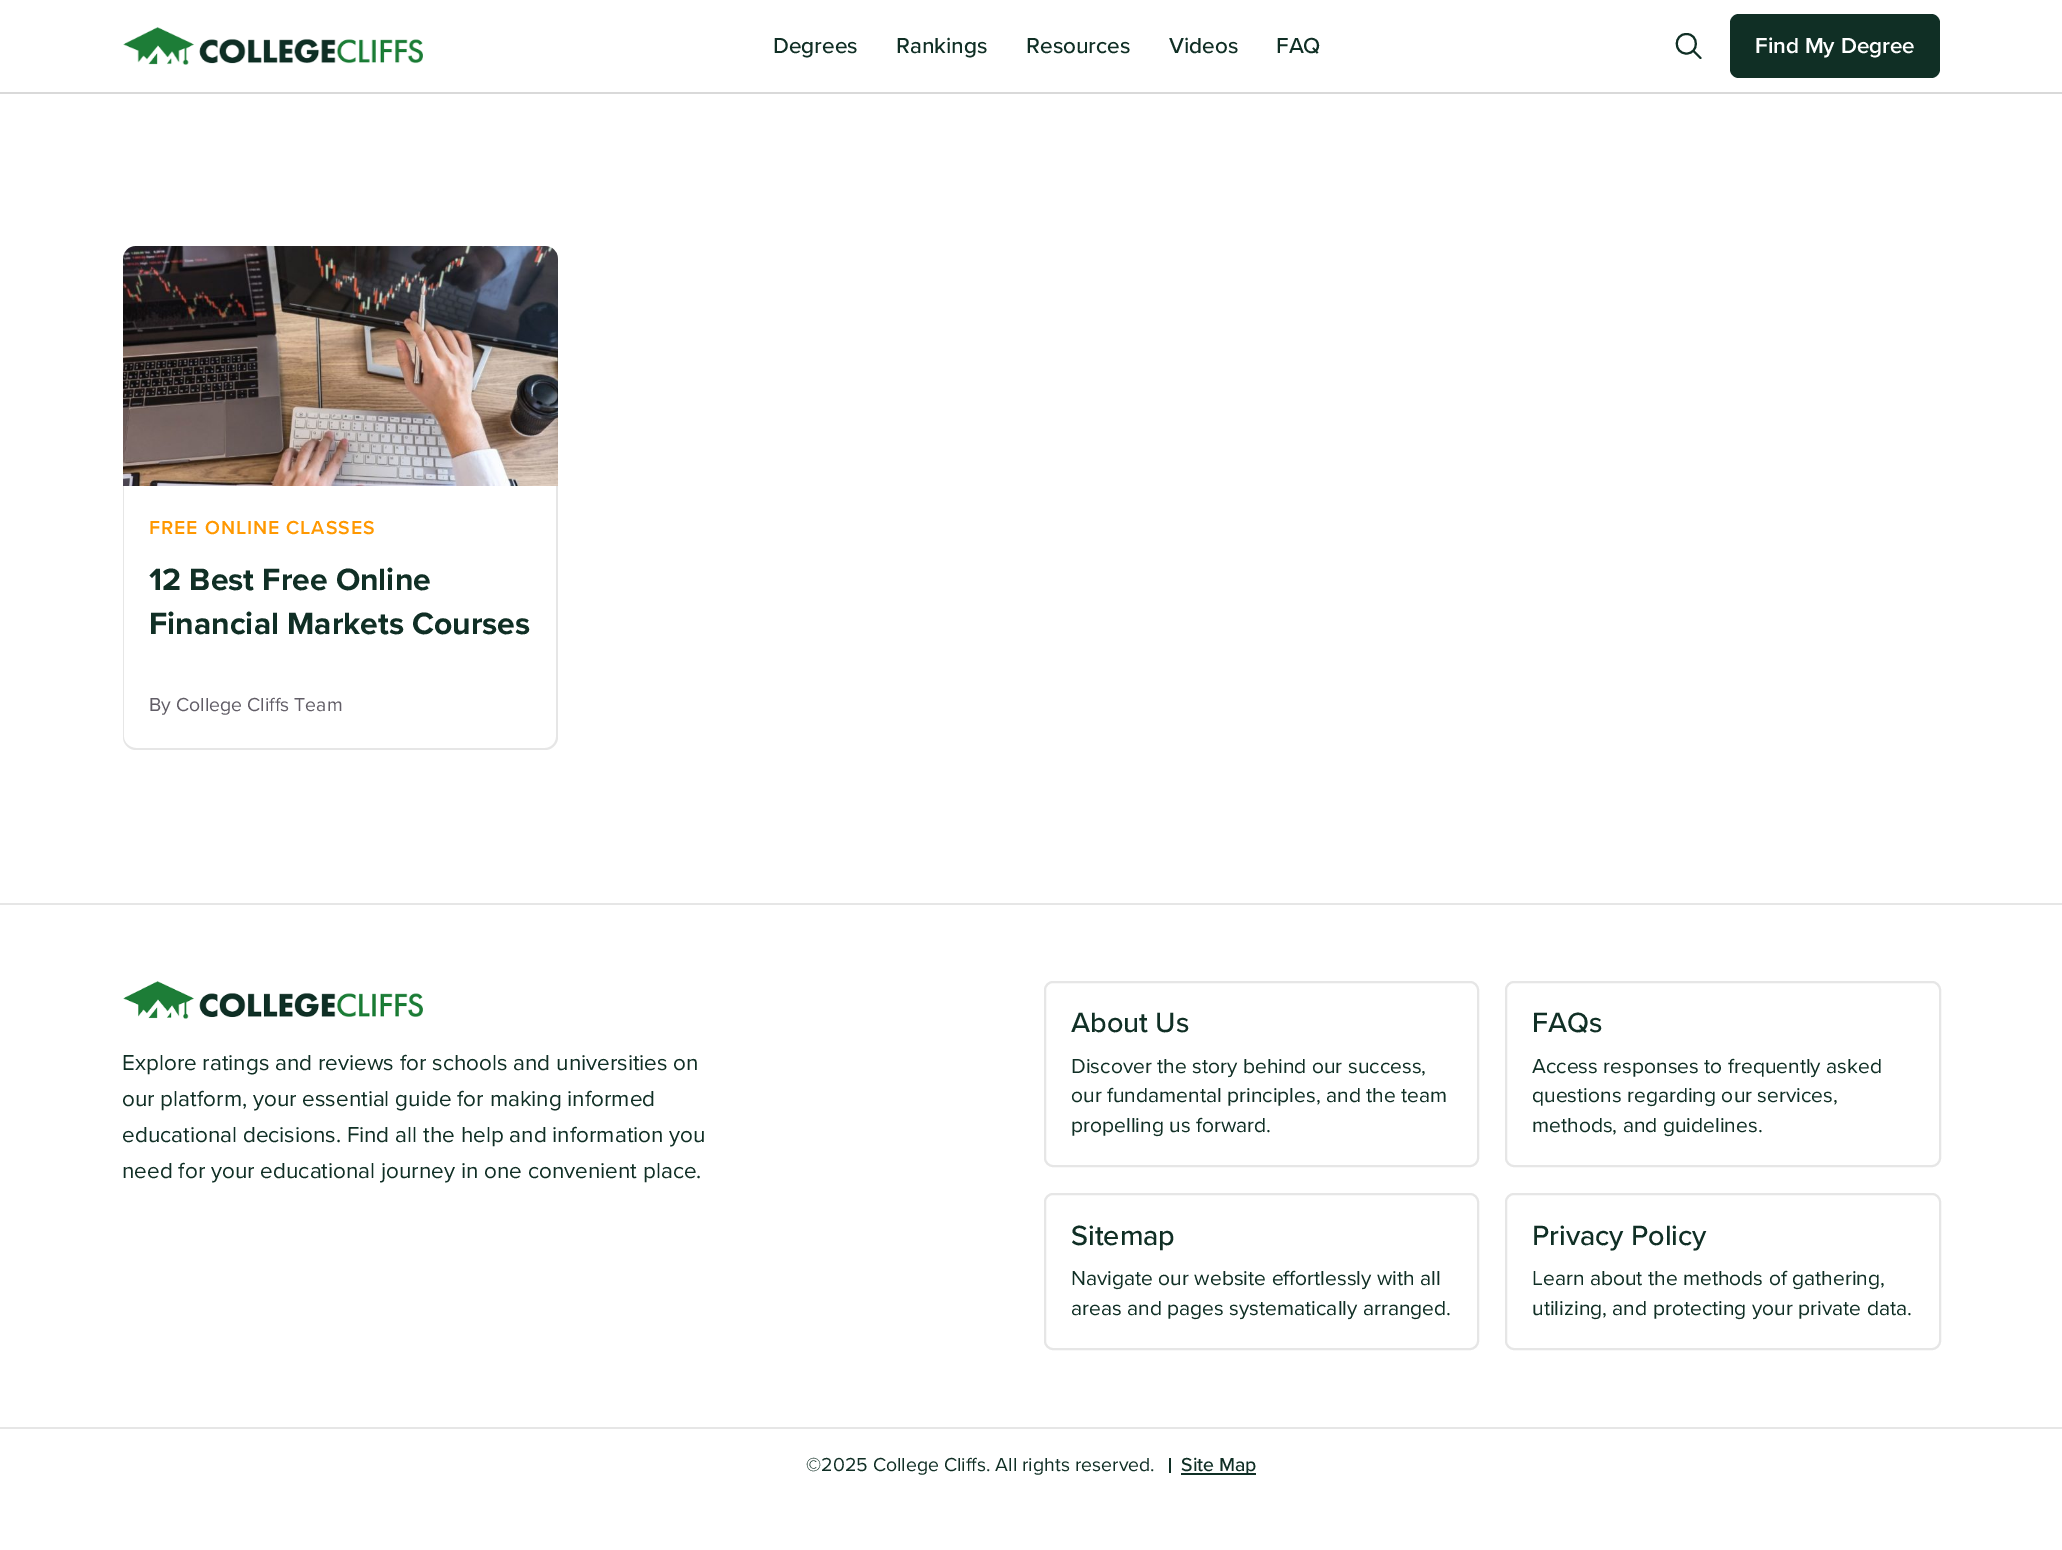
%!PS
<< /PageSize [2062 1550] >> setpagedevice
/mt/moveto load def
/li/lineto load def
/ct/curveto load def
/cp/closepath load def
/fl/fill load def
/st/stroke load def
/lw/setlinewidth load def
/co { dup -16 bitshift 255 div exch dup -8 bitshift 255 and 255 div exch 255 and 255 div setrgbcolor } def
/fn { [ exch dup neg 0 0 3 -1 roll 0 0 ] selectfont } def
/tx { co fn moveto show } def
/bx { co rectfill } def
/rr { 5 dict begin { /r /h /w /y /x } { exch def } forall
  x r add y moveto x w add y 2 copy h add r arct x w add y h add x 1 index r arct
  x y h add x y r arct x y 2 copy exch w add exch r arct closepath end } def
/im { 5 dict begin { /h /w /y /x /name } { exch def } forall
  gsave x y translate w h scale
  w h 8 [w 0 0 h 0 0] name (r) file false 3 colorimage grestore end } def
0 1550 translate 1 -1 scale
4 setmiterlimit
0 0 2062 1550 16#FFFFFF bx
0 92 2062 2 16#D9D9D9 bx
(media/1.raw) 123 27 300 38 im
16#102F25 co
2 lw
1686.5 34 mt 1673.5 34 1673.5 53.5 1686.5 53.5 ct 1699 53.5 1699 34 1686.5 34 ct cp st
1 setlinecap
1693.5 51 mt 1700.5 58 li st
1730 14 210 64 9 rr fl
(media/2.raw) 123 246 435 240 im
16#E6E6E6 co
123 486 mt 558 486 li 558 737 li 558 744 552 750 545 750 ct 136 750 li 129 750 123 744 123 737 ct cp 124 486 mt 556 486 li 556 737 li 556 743 551 748 545 748 ct 136 748 li 130 748 124 743 124 737 ct cp eofill
0 903 2062 2 16#E6E6E6 bx
0 1427 2062 2 16#E6E6E6 bx
(media/3.raw) 123 981 300 38 im
0 setlinecap
1045 982 433 184 8 rr st
1506 982 434 184 8 rr st
1045 1194 433 155 8 rr st
1506 1194 434 155 8 rr st
1169 1458 2 15 16#102F25 bx
1181 1473 75 2 16#102F25 bx
(Degrees) 773 53 /ProximaNova-Medium 22.5 16#102F25 tx
(Rankings) 896 53 /ProximaNova-Medium 22.5 16#102F25 tx
(Resources) 1026 53 /ProximaNova-Medium 22.5 16#102F25 tx
(Videos) 1169 53 /ProximaNova-Medium 22.5 16#102F25 tx
(FAQ) 1276 53 /ProximaNova-Medium 22.5 16#102F25 tx
(Find My Degree) 1755 53 /ProximaNova-SemiBold 22.5 16#FFFFFF tx
/ProximaNova-SemiBold 19.5 fn
16#FF9800 co
149 534 mt 1 0 (FREE ONLINE CLASSES) ashow
(12 Best Free Online) 149 590 /ProximaNova-Bold 31.9 16#102F25 tx
(Financial Markets Courses) 149 634 /ProximaNova-Bold 31.9 16#102F25 tx
(By College Cliffs Team) 149 711 /ProximaNova-Regular 19.5 16#615D66 tx
(Explore ratings and reviews for schools and universities on) 122 1070 /ProximaNova-Regular 22.5 16#102F25 tx
(our platform, your essential guide for making informed) 122 1106 /ProximaNova-Regular 22.5 16#102F25 tx
(educational decisions. Find all the help and information you) 122 1142 /ProximaNova-Regular 22.5 16#102F25 tx
(need for your educational journey in one convenient place.) 122 1178 /ProximaNova-Regular 22.5 16#102F25 tx
(About Us) 1071 1032 /ProximaNova-Medium 28.75 16#102F25 tx
(Discover the story behind our success,) 1071 1073 /ProximaNova-Regular 21 16#102F25 tx
(our fundamental principles, and the team) 1071 1102 /ProximaNova-Regular 21 16#102F25 tx
(propelling us forward.) 1071 1132 /ProximaNova-Regular 21 16#102F25 tx
(FAQs) 1532 1032 /ProximaNova-Medium 28.75 16#102F25 tx
(Access responses to frequently asked) 1532 1073 /ProximaNova-Regular 21 16#102F25 tx
(questions regarding our services,) 1532 1102 /ProximaNova-Regular 21 16#102F25 tx
(methods, and guidelines.) 1532 1132 /ProximaNova-Regular 21 16#102F25 tx
(Sitemap) 1071 1245 /ProximaNova-Medium 28.75 16#102F25 tx
(Navigate our website effortlessly with all) 1071 1285 /ProximaNova-Regular 21 16#102F25 tx
(areas and pages systematically arranged.) 1071 1315 /ProximaNova-Regular 21 16#102F25 tx
(Privacy Policy) 1532 1245 /ProximaNova-Medium 28.75 16#102F25 tx
(Learn about the methods of gathering,) 1532 1285 /ProximaNova-Regular 21 16#102F25 tx
(utilizing, and protecting your private data.) 1532 1315 /ProximaNova-Regular 21 16#102F25 tx
(©2025 College Cliffs. All rights reserved.) 806 1471 /ProximaNova-Regular 19.5 16#102F25 tx
(Site Map) 1181 1471 /ProximaNova-Medium 19.5 16#102F25 tx
showpage
